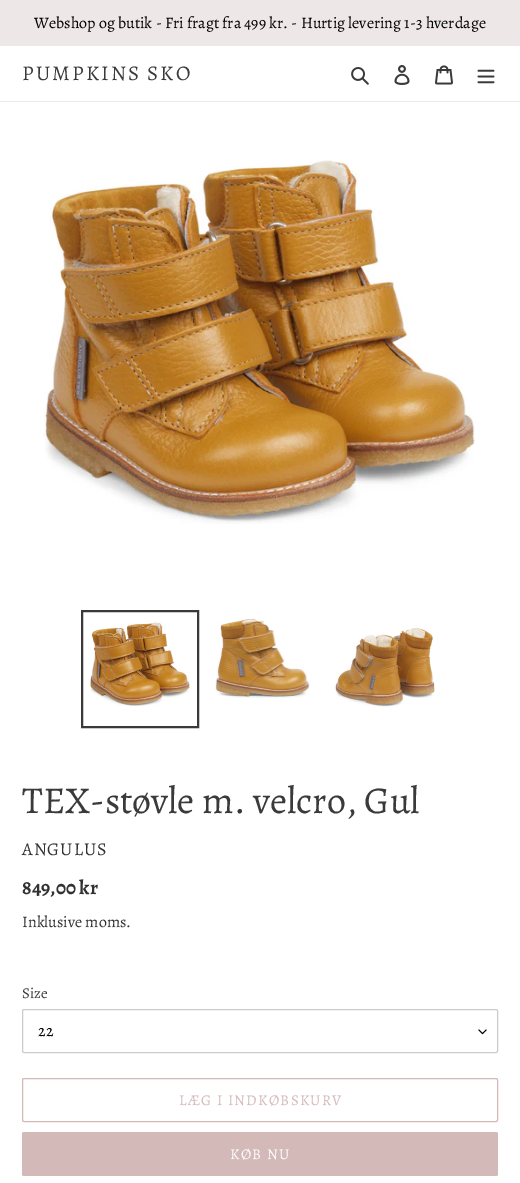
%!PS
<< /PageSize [520 1183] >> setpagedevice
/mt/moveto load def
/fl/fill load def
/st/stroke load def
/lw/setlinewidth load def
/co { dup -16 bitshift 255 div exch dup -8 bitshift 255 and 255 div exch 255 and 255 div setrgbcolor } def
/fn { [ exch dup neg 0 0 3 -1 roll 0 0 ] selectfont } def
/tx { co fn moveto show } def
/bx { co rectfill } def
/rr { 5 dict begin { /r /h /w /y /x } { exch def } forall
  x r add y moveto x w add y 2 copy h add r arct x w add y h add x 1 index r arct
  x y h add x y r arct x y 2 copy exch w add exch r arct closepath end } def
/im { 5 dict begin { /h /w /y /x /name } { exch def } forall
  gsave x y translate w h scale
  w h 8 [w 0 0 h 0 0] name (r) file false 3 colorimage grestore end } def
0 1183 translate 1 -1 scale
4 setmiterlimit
0 0 520 1183 16#FFFFFF bx
0 0 520 46 16#EEE7E7 bx
0 101 520 1 16#EBEBEB bx
(media/1.raw) 351 67 18 18 im
(media/2.raw) 394 65 16 20 im
(media/3.raw) 435 65 18 20 im
(media/4.raw) 477 69 18 15 im
(media/5.raw) 43 160 432 364 im
16#3A3A3A co
2 lw
82 611 116 116 rectstroke
(media/6.raw) 90 622 100 84 im
(media/7.raw) 215 618 95 80 im
(media/8.raw) 334 626 101 81 im
(media/9.raw) 478 1029 9 6 im
16#CCCCCC co
1 lw
22.5 1009.5 475 43 1.5 rr st
16#D4B9B9 co
22.5 1078.5 475 43 1.5 rr st
22 1132 476 44 2 rr fl
(Webshop og butik - Fri fragt fra 499 kr. - Hurtig levering 1-3 hverdage) 34 28 /Alegreya-Regular 16 16#000000 tx
/Alegreya-Regular 21 fn
16#3A3A3A co
22 80 mt 2.1 0 (PUMPKINS SKO) ashow
(TEX-støvle m. velcro, Gul) 22 813 /Alegreya-Regular 38 16#3A3A3A tx
/Alegreya-Regular 18 fn
16#333232 co
22 855 mt 1 0 (ANGULUS) ashow
(849,00 kr) 22 894 /Alegreya-Bold 20 16#333232 tx
(Inklusive moms.) 22 927 /Alegreya-Regular 16 16#333232 tx
(Size) 22 998 /Alegreya-Regular 15 16#3A3A3A tx
(22) 38 1036 /Alegreya-Regular 16 16#000000 tx
/Alegreya-Regular 15 fn
16#D4B9B9 co
179 1105 mt 1.25 0 (LÆG I INDKØBSKURV) ashow
16#FFFFFF co
230 1159 mt 1.25 0 (KØB NU) ashow
showpage
